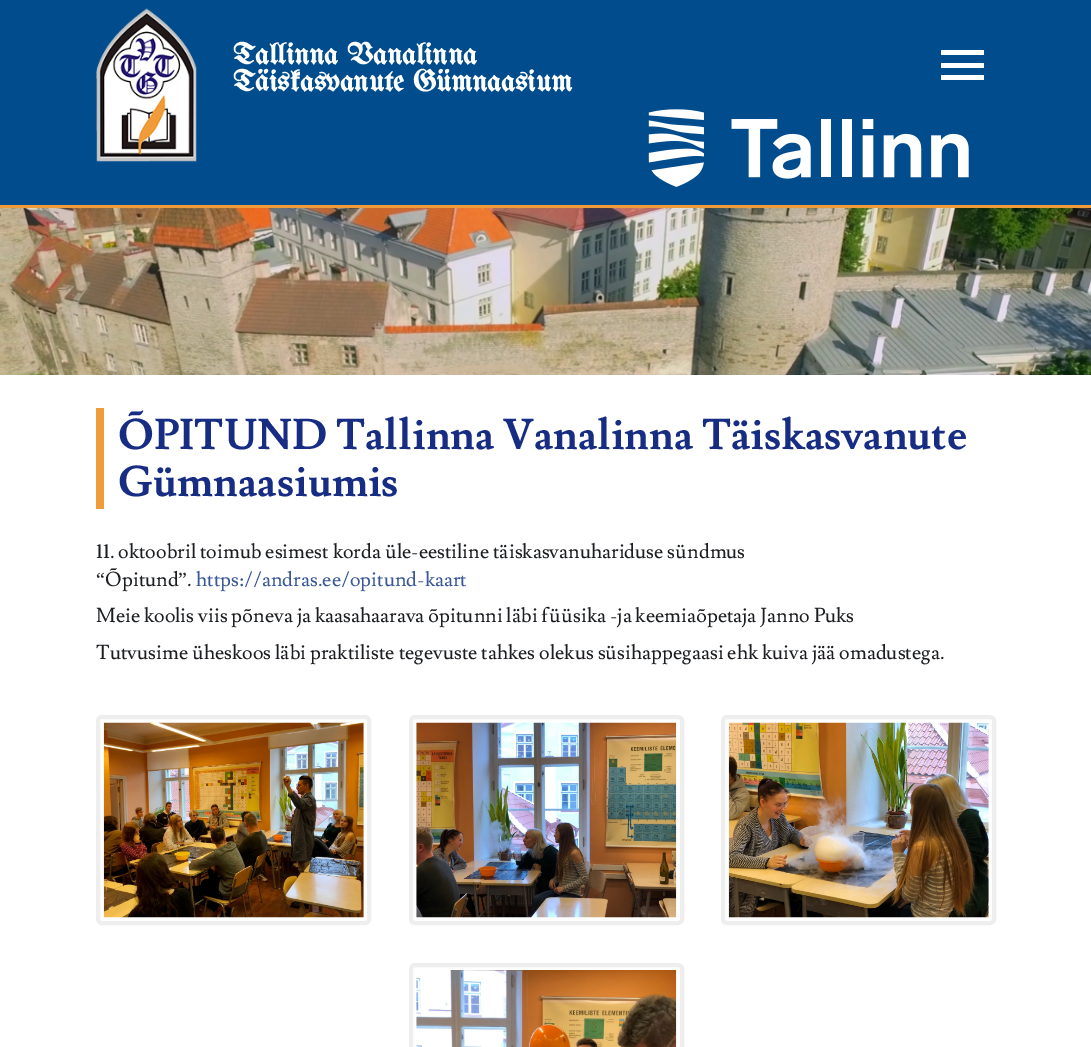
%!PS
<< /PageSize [1091 1047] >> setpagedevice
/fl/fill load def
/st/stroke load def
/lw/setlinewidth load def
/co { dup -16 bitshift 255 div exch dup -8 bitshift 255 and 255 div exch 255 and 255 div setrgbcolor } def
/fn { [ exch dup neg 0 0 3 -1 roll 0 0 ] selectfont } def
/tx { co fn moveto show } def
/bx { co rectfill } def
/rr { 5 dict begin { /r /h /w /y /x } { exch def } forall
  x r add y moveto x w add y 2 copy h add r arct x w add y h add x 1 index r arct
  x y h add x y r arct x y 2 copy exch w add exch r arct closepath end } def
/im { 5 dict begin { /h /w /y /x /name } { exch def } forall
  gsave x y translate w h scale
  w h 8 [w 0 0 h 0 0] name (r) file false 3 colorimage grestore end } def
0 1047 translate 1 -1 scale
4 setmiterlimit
0 0 1091 1047 16#FFFFFF bx
0 205 1091 3 16#F09C3A bx
0 0 1091 205 16#004C8C bx
(media/1.raw) 96 8 101 154 im
16#FFFFFF co
941 50 43 5 1 rr fl
941 63 43 5 1 rr fl
941 75 43 5 1 rr fl
(media/2.raw) 648 109 321 78 im
(media/3.raw) 0 208 1091 167 im
96 408 8 101 16#F09C3A bx
16#EEEEEE co
4 lw
98 717 271 206 4 rr st
(media/4.raw) 103 722 261 196 im
411 717 271 206 4 rr st
(media/5.raw) 416 722 261 196 im
723 717 271 206 4 rr st
(media/6.raw) 728 722 261 196 im
411 965 271 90 4 rr st
(media/7.raw) 416 970 261 77 im
(Tallinna Vanalinna) 233 64 /UnifrakturMaguntia-Bold 30 16#FFFFFF tx
(Täiskasvanute Gümnaasium) 233 91 /UnifrakturMaguntia-Bold 30 16#FFFFFF tx
(ÕPITUND Tallinna Vanalinna Täiskasvanute) 118 449 /Lusitana-Bold 42.5 16#172C83 tx
(Gümnaasiumis) 118 496 /Lusitana-Bold 42.5 16#172C83 tx
(11. oktoobril toimub esimest korda üle-eestiline täiskasvanuhariduse sündmus) 96 558 /Lusitana-Regular 20 16#1C1E21 tx
(“) 96 586 /LiberationSerif-Regular 20 16#1C1E21 tx
(Õpitund) 105 586 /Lusitana-Regular 20 16#1C1E21 tx
(”) 178 586 /LiberationSerif-Regular 20 16#1C1E21 tx
(https://andras.ee/opitund-kaart) 196 586 /Lusitana-Regular 20 16#385898 tx
(.) 187 586 /Lusitana-Regular 20 16#1C1E21 tx
(Meie koolis viis põneva ja kaasahaarava õpitunni läbi füüsika -ja keemiaõpetaja Janno Puks) 96 622 /Lusitana-Regular 20 16#1C1E21 tx
(Tutvusime üheskoos läbi praktiliste tegevuste tahkes olekus süsihappegaasi ehk kuiva jää omadustega.) 96 659 /Lusitana-Regular 20 16#1C1E21 tx
showpage
